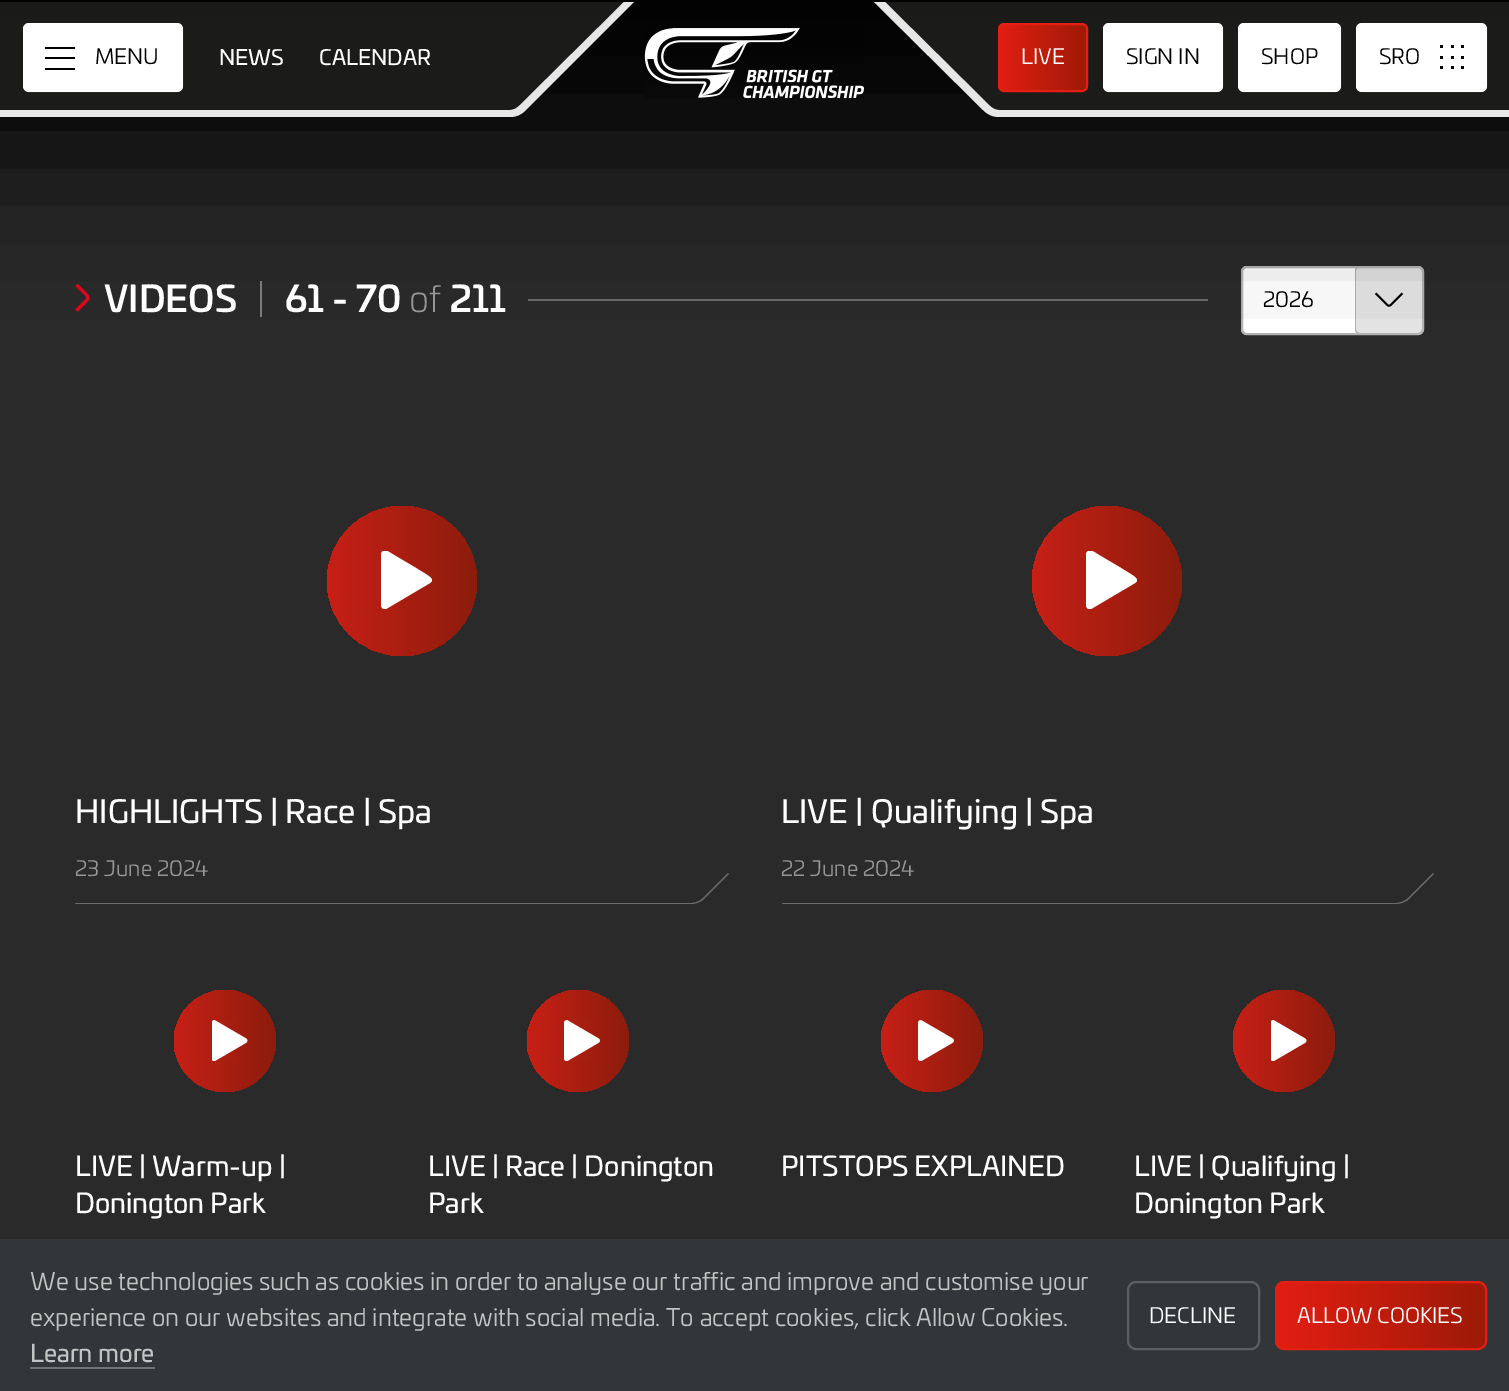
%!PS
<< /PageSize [1509 1391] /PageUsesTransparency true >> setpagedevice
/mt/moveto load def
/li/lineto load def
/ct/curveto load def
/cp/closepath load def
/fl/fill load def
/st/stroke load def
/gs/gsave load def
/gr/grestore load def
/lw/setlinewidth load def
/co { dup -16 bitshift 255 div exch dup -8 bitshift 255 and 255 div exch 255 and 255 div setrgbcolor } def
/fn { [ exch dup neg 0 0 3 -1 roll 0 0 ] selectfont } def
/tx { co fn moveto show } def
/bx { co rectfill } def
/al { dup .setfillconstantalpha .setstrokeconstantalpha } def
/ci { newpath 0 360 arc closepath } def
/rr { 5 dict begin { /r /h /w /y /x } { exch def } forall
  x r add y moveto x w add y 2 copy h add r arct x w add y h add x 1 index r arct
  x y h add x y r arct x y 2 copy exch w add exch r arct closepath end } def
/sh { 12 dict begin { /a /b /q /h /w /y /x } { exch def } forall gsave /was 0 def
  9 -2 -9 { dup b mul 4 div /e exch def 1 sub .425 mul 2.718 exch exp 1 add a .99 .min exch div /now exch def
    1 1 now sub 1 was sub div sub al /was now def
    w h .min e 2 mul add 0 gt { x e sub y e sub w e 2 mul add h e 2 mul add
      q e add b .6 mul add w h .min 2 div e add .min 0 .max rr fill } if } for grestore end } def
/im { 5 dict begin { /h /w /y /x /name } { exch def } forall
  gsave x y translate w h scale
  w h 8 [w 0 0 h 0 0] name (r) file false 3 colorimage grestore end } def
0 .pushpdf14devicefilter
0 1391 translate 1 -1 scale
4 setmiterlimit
0 0 1509 1391 16#2A2A2B bx
(media/2.raw) 75 284 15 28 im
260 281 2 36 16#7F7F80 bx
528 299 680 2 16#6A6A6B bx
16#FFFFFF co
1241 266 183 69 6 rr fl
(media/3.raw) 1355 266 69 69 im
16#B2B2B2 co
2 lw
1242 267 181 67 5 rr st
16#000000 co
-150 -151 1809 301 0 75 1 sh
0.9 al
16#1D1D1B co
-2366 2 mt -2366 110 li 510 110 li 514 110 518 108 520 105 ct 624 2 li cp fl
16#FFFFFF co
624 2 mt 520 105 li 517 108 514 110 510 110 ct -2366 110 li -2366 117 li 510 117 li 516 117 521 115 526 110 ct 634 2 li cp fl
1 al
23 23 160 69 6 rr fl
0.2 al
24 24 158 67 5 rr st
1 al
45 47 30 2 16#000000 bx
45 57 30 2 16#000000 bx
45 68 30 2 16#000000 bx
(media/1.raw) 644 28 220 71 im
0.9 al
16#1D1D1B co
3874 2 mt 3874 110 li 999 110 li 995 110 992 108 989 105 ct 885 2 li cp fl
16#FFFFFF co
885 2 mt 989 105 li 992 108 995 110 999 110 ct 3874 110 li 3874 117 li 999 117 li 993 117 988 115 983 110 ct 874 2 li cp fl
1 al
gs 999 24 88 67 5 rr clip newpath
<< /ShadingType 2 /ColorSpace /DeviceRGB /Coords [998 57 1088 57] /Extend [true true] /Function << /FunctionType 2 /Domain [0 1] /C0 [.89 .118 .071] /C1 [.616 .102 .027] /N 1 >> >> shfill gr
16#E31E12 co
999 24 88 67 5 rr st
16#FFFFFF co
1103 23 120 69 6 rr fl
0.2 al
1104 24 118 67 5 rr st
1 al
1238 23 103 69 6 rr fl
0.2 al
1239 24 101 67 5 rr st
1 al
1356 23 131 69 6 rr fl
0.2 al
1357 24 129 67 5 rr st
1 al
1440 45 3 3 16#000000 bx
1451 45 3 3 16#000000 bx
1461 45 3 3 16#000000 bx
1440 56 3 3 16#000000 bx
1451 56 3 3 16#000000 bx
1461 56 3 3 16#000000 bx
1440 66 3 3 16#000000 bx
1451 66 3 3 16#000000 bx
1461 66 3 3 16#000000 bx
gs 402 581 75 ci clip newpath
<< /ShadingType 2 /ColorSpace /DeviceRGB /Coords [327 581 477 581] /Extend [true true] /Function << /FunctionType 2 /Domain [0 1] /C0 [.78 .125 .086] /C1 [.549 .11 .047] /N 1 >> >> shfill gr
gs
381 551 51 58 rectclip
16#FFFFFF co
430 583 mt 386 609 li 384 609 li 379 608 381 599 381 597 ct 381 563 li 381 561 379 553 383 551 ct 386 549 392 554 394 555 ct 416 568 li 425 574 437 579 430 583 ct cp fl
gr
gs 1107 581 75 ci clip newpath
<< /ShadingType 2 /ColorSpace /DeviceRGB /Coords [1032 581 1182 581] /Extend [true true] /Function << /FunctionType 2 /Domain [0 1] /C0 [.78 .125 .086] /C1 [.549 .11 .047] /N 1 >> >> shfill gr
gs
1086 551 51 58 rectclip
16#FFFFFF co
1135 583 mt 1091 609 li 1089 609 li 1084 608 1086 599 1086 597 ct 1086 563 li 1086 561 1084 553 1088 551 ct 1091 549 1097 554 1099 555 ct 1121 568 li 1130 574 1142 579 1135 583 ct cp fl
gr
gs 225 1041 51 ci clip newpath
<< /ShadingType 2 /ColorSpace /DeviceRGB /Coords [174 1041 276 1041] /Extend [true true] /Function << /FunctionType 2 /Domain [0 1] /C0 [.78 .125 .086] /C1 [.549 .11 .047] /N 1 >> >> shfill gr
(media/4.raw) 212 1020 36 41 im
gs 578 1041 51 ci clip newpath
<< /ShadingType 2 /ColorSpace /DeviceRGB /Coords [527 1041 629 1041] /Extend [true true] /Function << /FunctionType 2 /Domain [0 1] /C0 [.78 .125 .086] /C1 [.549 .11 .047] /N 1 >> >> shfill gr
(media/5.raw) 564 1020 36 41 im
gs 932 1041 51 ci clip newpath
<< /ShadingType 2 /ColorSpace /DeviceRGB /Coords [881 1041 983 1041] /Extend [true true] /Function << /FunctionType 2 /Domain [0 1] /C0 [.78 .125 .086] /C1 [.549 .11 .047] /N 1 >> >> shfill gr
(media/5.raw) 918 1020 36 41 im
gs 1284 1041 51 ci clip newpath
<< /ShadingType 2 /ColorSpace /DeviceRGB /Coords [1233 1041 1335 1041] /Extend [true true] /Function << /FunctionType 2 /Domain [0 1] /C0 [.78 .125 .086] /C1 [.549 .11 .047] /N 1 >> >> shfill gr
(media/4.raw) 1271 1020 36 41 im
0 1239 1509 152 16#333638 bx
30 1367 125 2 16#707274 bx
16#5C5E60 co
1128 1282 131 67 8 rr st
gs 1276 1282 210 67 8 rr clip newpath
<< /ShadingType 2 /ColorSpace /DeviceRGB /Coords [1275 1316 1487 1316] /Extend [true true] /Function << /FunctionType 2 /Domain [0 1] /C0 [.89 .118 .071] /C1 [.616 .102 .027] /N 1 >> >> shfill gr
16#E31E12 co
1276 1282 210 67 8 rr st
(MENU) 95 64 /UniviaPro-Regular 21 16#000000 tx
(NEWS) 219 65 /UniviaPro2-Regular 21 16#FFFFFF tx
(CALENDAR) 319 65 /UniviaPro2-Regular 21 16#FFFFFF tx
(LIVE) 1021 64 /UniviaPro-Regular 21 16#FFFFFF tx
(SIGN IN) 1126 64 /UniviaPro-Regular 21 16#000000 tx
(SHOP) 1261 64 /UniviaPro-Regular 21 16#000000 tx
(SRO) 1379 64 /UniviaPro-Regular 21 16#000000 tx
(VIDEOS) 104 312 /UniviaPro-Medium 36 16#FFFFFF tx
(61 - 70) 285 312 /UniviaPro-Medium 36 16#FFFFFF tx
(of) 409 312 /UniviaPro-Light 36 16#959595 tx
(211) 450 312 /UniviaPro-Medium 36 16#FFFFFF tx
(2026) 1263 307 /UniviaPro-Regular 21 16#000000 tx
(HIGHLIGHTS | Race | Spa) 75 823 /UniviaPro2-Regular 31.5 16#FFFFFF tx
(23 June 2024) 75 876 /UniviaPro-Regular 21 16#959595 tx
gs
75 873 654 32 rectclip
16#6A6A6B co
691 904 mt -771 904 li -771 903 li 691 903 li 696 903 700 901 703 898 ct 728 873 li 729 874 li 704 899 li 701 902 696 904 691 904 ct cp fl
gr
(LIVE | Qualifying | Spa) 781 823 /UniviaPro2-Regular 31.5 16#FFFFFF tx
(22 June 2024) 781 876 /UniviaPro-Regular 21 16#959595 tx
gs
782 873 652 32 rectclip
16#6A6A6B co
1396 904 mt -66 904 li -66 903 li 1396 903 li 1401 903 1405 901 1408 898 ct 1433 873 li 1434 874 li 1409 899 li 1406 902 1401 904 1396 904 ct cp fl
gr
(LIVE | Warm-up |) 75 1176 /UniviaPro2-Regular 27 16#FFFFFF tx
(Donington Park) 75 1213 /UniviaPro2-Regular 27 16#FFFFFF tx
(LIVE | Race | Donington) 428 1176 /UniviaPro2-Regular 27 16#FFFFFF tx
(Park) 428 1213 /UniviaPro2-Regular 27 16#FFFFFF tx
(PITSTOPS EXPLAINED) 781 1176 /UniviaPro2-Regular 27 16#FFFFFF tx
(LIVE | Qualifying |) 1134 1176 /UniviaPro2-Regular 27 16#FFFFFF tx
(Donington Park) 1134 1213 /UniviaPro2-Regular 27 16#FFFFFF tx
(We use technologies such as cookies in order to analyse our traffic and improve and customise your) 30 1290 /UniviaPro-Regular 24 16#C2C3C3 tx
(experience on our websites and integrate with social media. To accept cookies, click Allow Cookies.) 30 1326 /UniviaPro-Regular 24 16#C2C3C3 tx
(Learn more) 30 1362 /UniviaPro2-Regular 24 16#C2C3C3 tx
(DECLINE) 1149 1323 /UniviaPro-Regular 21 16#FFFFFF tx
(ALLOW COOKIES) 1297 1323 /UniviaPro-Regular 21 16#FFFFFF tx
.poppdf14devicefilter showpage
